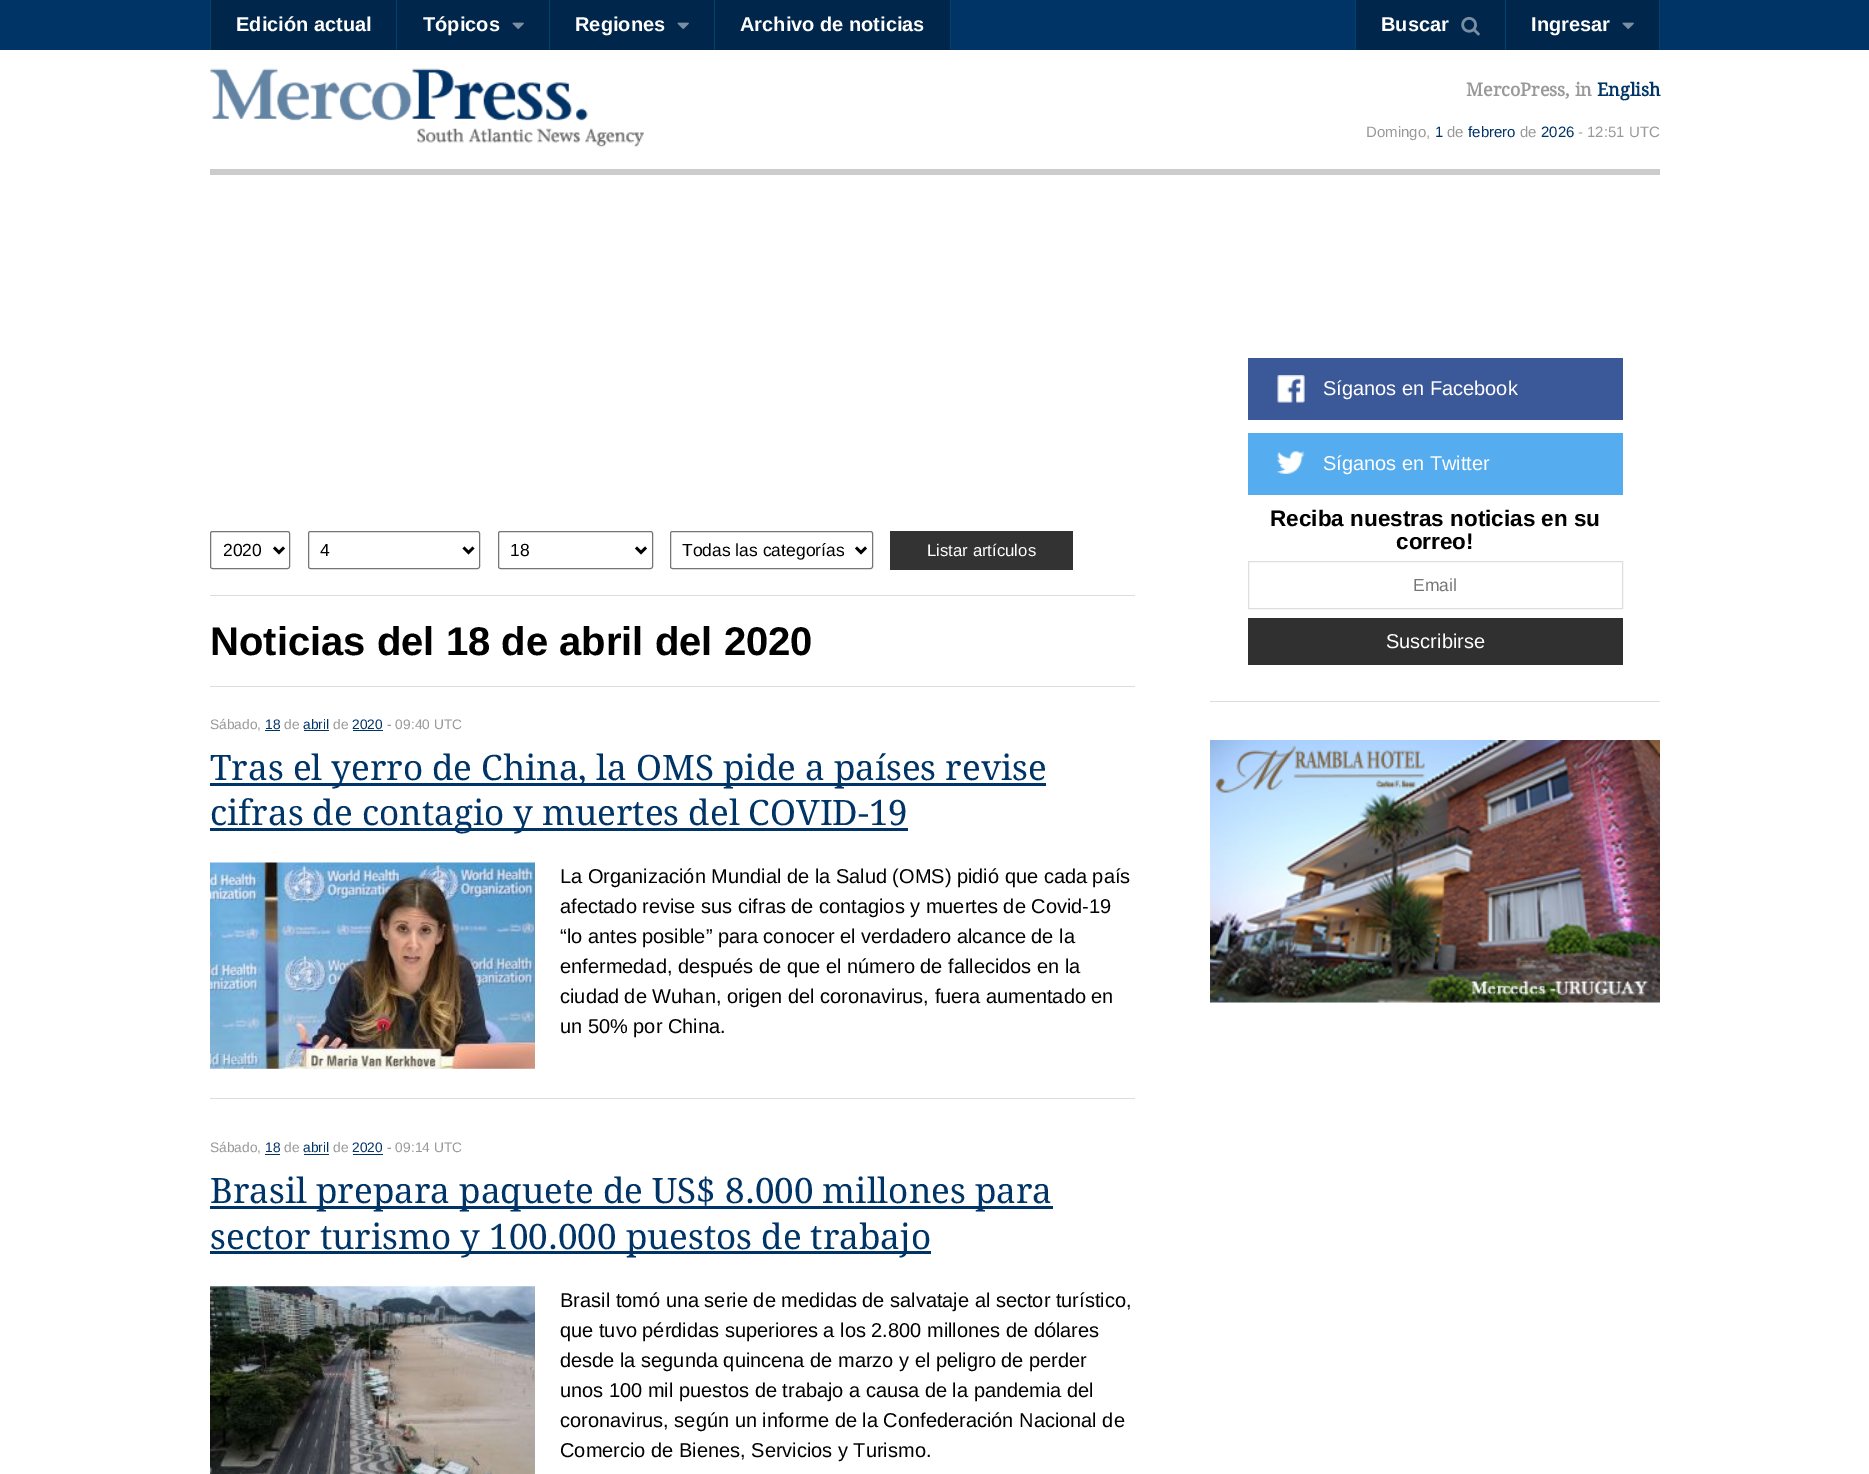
%!PS
<< /PageSize [1869 1474] >> setpagedevice
/mt/moveto load def
/li/lineto load def
/st/stroke load def
/lw/setlinewidth load def
/co { dup -16 bitshift 255 div exch dup -8 bitshift 255 and 255 div exch 255 and 255 div setrgbcolor } def
/fn { [ exch dup neg 0 0 3 -1 roll 0 0 ] selectfont } def
/tx { co fn moveto show } def
/bx { co rectfill } def
/rr { 5 dict begin { /r /h /w /y /x } { exch def } forall
  x r add y moveto x w add y 2 copy h add r arct x w add y h add x 1 index r arct
  x y h add x y r arct x y 2 copy exch w add exch r arct closepath end } def
/im { 5 dict begin { /h /w /y /x /name } { exch def } forall
  gsave x y translate w h scale
  w h 8 [w 0 0 h 0 0] name (r) file false 3 colorimage grestore end } def
0 1474 translate 1 -1 scale
4 setmiterlimit
0 0 1869 1474 16#FFFFFF bx
0 0 1869 50 16#003366 bx
211 0 338 50 16#00264C bx
396 0 1 50 16#00446C bx
210 0 1 50 16#00446C bx
549 0 1 50 16#00446C bx
(media/1.raw) 512 22 12 7 im
550 0 164 50 16#00264C bx
714 0 1 50 16#00446C bx
(media/1.raw) 677 22 12 7 im
715 0 235 50 16#00264C bx
950 0 1 50 16#00446C bx
1356 0 149 50 16#00264C bx
1505 0 1 50 16#00446C bx
1355 0 1 50 16#00446C bx
(media/2.raw) 1461 16 19 20 im
1506 0 153 50 16#00264C bx
1659 0 1 50 16#00446C bx
(media/1.raw) 1622 22 12 7 im
210 169 1450 6 16#CCCCCC bx
(media/3.raw) 210 68 434 79 im
1210 701 450 1 16#DDDDDD bx
1248 358 375 62 16#3B5998 bx
(media/4.raw) 1277 375 28 28 im
1248 433 375 62 16#55ACEE bx
(media/5.raw) 1277 451 28 23 im
16#DEDEDE co
1248.5 561.5 374 47 rectstroke
1248 618 375 47 16#303030 bx
(media/6.raw) 1210 740 450 263 im
210 595 925 1 16#DDDDDD bx
16#767676 co
210.5 531.5 79 37 2 rr st
16#000000 co
2.5 lw
274 547.5 mt 279 552.5 li 284 547.5 li st
16#767676 co
1 lw
308.5 531.5 171 37 2 rr st
16#000000 co
2.5 lw
463.5 547.5 mt 468.5 552.5 li 473.5 547.5 li st
16#767676 co
1 lw
498.5 531.5 154 37 2 rr st
16#000000 co
2.5 lw
636 547.5 mt 641 552.5 li 646 547.5 li st
16#767676 co
1 lw
670.5 531.5 202 37 2 rr st
16#000000 co
2.5 lw
856 547.5 mt 861 552.5 li 866 547.5 li st
890 531 183 39 16#333333 bx
210 686 925 1 16#DDDDDD bx
210 1098 925 1 16#DDDDDD bx
265 730 15 1 16#003366 bx
304 730 25 1 16#003366 bx
353 730 30 1 16#003366 bx
210 783 836 3 16#003366 bx
210 828 698 3 16#003366 bx
(media/7.raw) 210 862 325 207 im
265 1154 15 1 16#003366 bx
304 1154 25 1 16#003366 bx
353 1154 30 1 16#003366 bx
210 1206 843 3 16#003366 bx
210 1251 721 3 16#003366 bx
(media/8.raw) 210 1286 325 188 im
(Edición actual) 236 31 /LiberationSans-Bold 20 16#FFFFFF tx
(Tópicos) 423 31 /LiberationSans-Bold 20 16#FFFFFF tx
(Regiones) 575 31 /LiberationSans-Bold 20 16#FFFFFF tx
(Archivo de noticias) 740 31 /LiberationSans-Bold 20 16#FFFFFF tx
(Buscar) 1381 31 /LiberationSans-Bold 20 16#FFFFFF tx
(Ingresar) 1531 31 /LiberationSans-Bold 20 16#FFFFFF tx
(MercoPress, in) 1466 96 /DroidSerif-Bold 18 16#999999 tx
(English) 1597 96 /DroidSerif-Bold 18 16#003366 tx
(Domingo,) 1366 137 /LiberationSans-Regular 15 16#999999 tx
(1) 1435 137 /LiberationSans-Regular 15 16#003366 tx
(de) 1447 137 /LiberationSans-Regular 15 16#999999 tx
(febrero) 1468 137 /LiberationSans-Regular 15 16#003366 tx
(de) 1520 137 /LiberationSans-Regular 15 16#999999 tx
(2026) 1541 137 /LiberationSans-Regular 15 16#003366 tx
(- 12:51 UTC) 1578 137 /LiberationSans-Regular 15 16#999999 tx
(Síganos en Facebook) 1323 395 /LiberationSans-Regular 20 16#FFFFFF tx
(Síganos en Twitter) 1323 470 /LiberationSans-Regular 20 16#FFFFFF tx
(Reciba nuestras noticias en su) 1270 526 /LiberationSans-Bold 22.5 16#000000 tx
(correo!) 1396 549 /LiberationSans-Bold 22.5 16#000000 tx
(Email) 1413 591 /LiberationSans-Regular 17.5 16#757575 tx
(Suscribirse) 1386 648 /LiberationSans-Regular 20 16#FFFFFF tx
(2020) 223 556 /LiberationSans-Regular 17.5 16#000000 tx
(4) 320 556 /LiberationSans-Regular 17.5 16#000000 tx
(18) 510 556 /LiberationSans-Regular 17.5 16#000000 tx
(Todas las categorías) 682 556 /LiberationSans-Regular 17.5 16#000000 tx
(Listar artículos) 927 556 /LiberationSans-Regular 16.75 16#FFFFFF tx
(Noticias del 18 de abril del 2020) 210 655 /LiberationSans-Bold 40 16#000000 tx
(Sábado,) 210 729 /LiberationSans-Regular 13.75 16#999999 tx
(18) 265 729 /LiberationSans-Regular 13.75 16#003366 tx
(de) 284 729 /LiberationSans-Regular 13.75 16#999999 tx
(abril) 303 729 /LiberationSans-Regular 13.75 16#003366 tx
(de) 333 729 /LiberationSans-Regular 13.75 16#999999 tx
(2020) 352 729 /LiberationSans-Regular 13.75 16#003366 tx
(- 09:40 UTC) 387 729 /LiberationSans-Regular 13.75 16#999999 tx
(Tras el yerro de China, la OMS pide a países revise) 210 780 /DroidSerif-Regular 35 16#003366 tx
(cifras de contagio y muertes del COVID-19) 210 825 /DroidSerif-Regular 35 16#003366 tx
(La Organización Mundial de la Salud \(OMS\) pidió que cada país) 560 883 /LiberationSans-Regular 20 16#000000 tx
(afectado revise sus cifras de contagios y muertes de Covid-19) 560 913 /LiberationSans-Regular 20 16#000000 tx
(“lo antes posible” para conocer el verdadero alcance de la) 560 943 /LiberationSans-Regular 20 16#000000 tx
(enfermedad, después de que el número de fallecidos en la) 560 973 /LiberationSans-Regular 20 16#000000 tx
(ciudad de Wuhan, origen del coronavirus, fuera aumentado en) 560 1003 /LiberationSans-Regular 20 16#000000 tx
(un 50% por China.) 560 1033 /LiberationSans-Regular 20 16#000000 tx
(Sábado,) 210 1152 /LiberationSans-Regular 13.75 16#999999 tx
(18) 265 1152 /LiberationSans-Regular 13.75 16#003366 tx
(de) 284 1152 /LiberationSans-Regular 13.75 16#999999 tx
(abril) 303 1152 /LiberationSans-Regular 13.75 16#003366 tx
(de) 333 1152 /LiberationSans-Regular 13.75 16#999999 tx
(2020) 352 1152 /LiberationSans-Regular 13.75 16#003366 tx
(- 09:14 UTC) 387 1152 /LiberationSans-Regular 13.75 16#999999 tx
(Brasil prepara paquete de US$ 8.000 millones para) 210 1203 /DroidSerif-Regular 35 16#003366 tx
(sector turismo y 100.000 puestos de trabajo) 210 1249 /DroidSerif-Regular 35 16#003366 tx
(Brasil tomó una serie de medidas de salvataje al sector turístico,) 560 1307 /LiberationSans-Regular 20 16#000000 tx
(que tuvo pérdidas superiores a los 2.800 millones de dólares) 560 1337 /LiberationSans-Regular 20 16#000000 tx
(desde la segunda quincena de marzo y el peligro de perder) 560 1367 /LiberationSans-Regular 20 16#000000 tx
(unos 100 mil puestos de trabajo a causa de la pandemia del) 560 1397 /LiberationSans-Regular 20 16#000000 tx
(coronavirus, según un informe de la Confederación Nacional de) 560 1427 /LiberationSans-Regular 20 16#000000 tx
(Comercio de Bienes, Servicios y Turismo.) 560 1457 /LiberationSans-Regular 20 16#000000 tx
showpage
